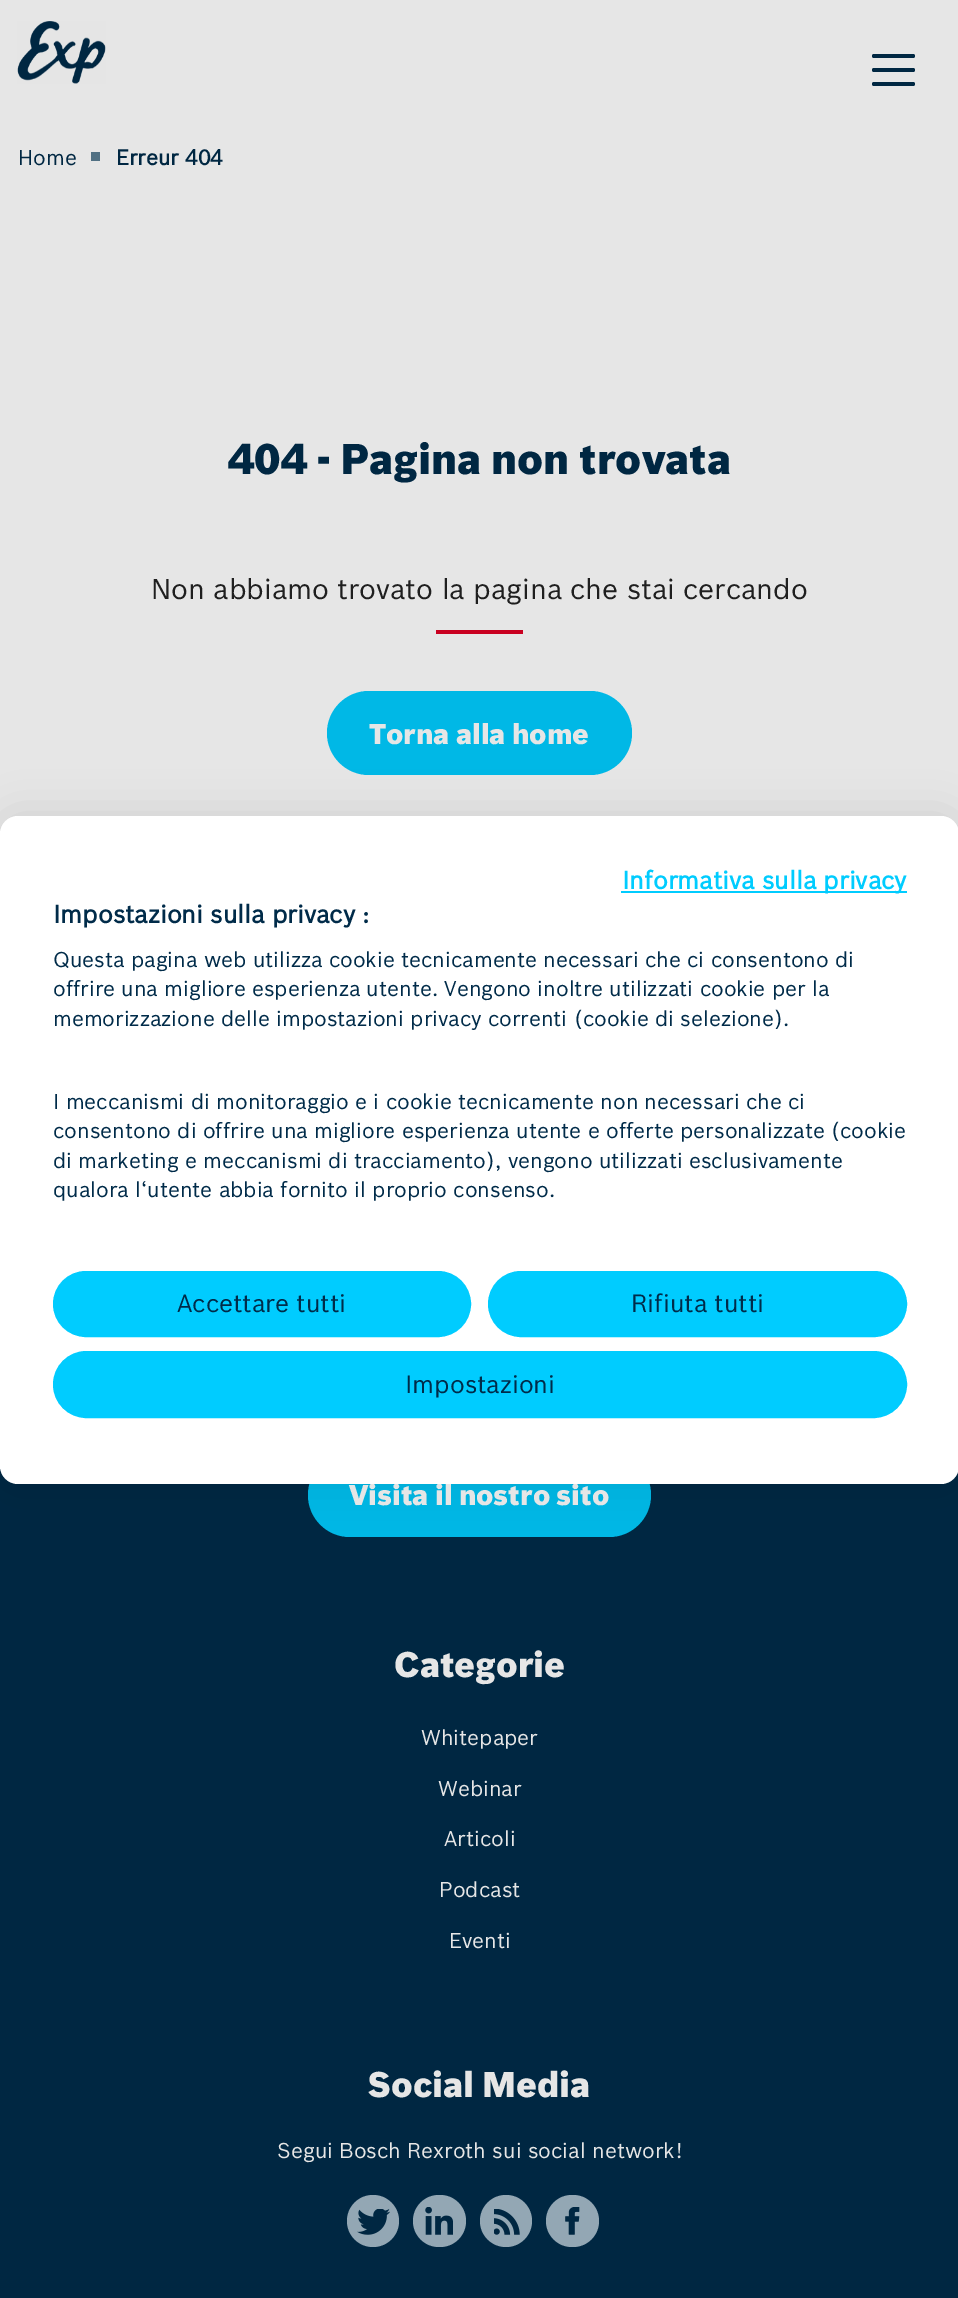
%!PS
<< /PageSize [958 2298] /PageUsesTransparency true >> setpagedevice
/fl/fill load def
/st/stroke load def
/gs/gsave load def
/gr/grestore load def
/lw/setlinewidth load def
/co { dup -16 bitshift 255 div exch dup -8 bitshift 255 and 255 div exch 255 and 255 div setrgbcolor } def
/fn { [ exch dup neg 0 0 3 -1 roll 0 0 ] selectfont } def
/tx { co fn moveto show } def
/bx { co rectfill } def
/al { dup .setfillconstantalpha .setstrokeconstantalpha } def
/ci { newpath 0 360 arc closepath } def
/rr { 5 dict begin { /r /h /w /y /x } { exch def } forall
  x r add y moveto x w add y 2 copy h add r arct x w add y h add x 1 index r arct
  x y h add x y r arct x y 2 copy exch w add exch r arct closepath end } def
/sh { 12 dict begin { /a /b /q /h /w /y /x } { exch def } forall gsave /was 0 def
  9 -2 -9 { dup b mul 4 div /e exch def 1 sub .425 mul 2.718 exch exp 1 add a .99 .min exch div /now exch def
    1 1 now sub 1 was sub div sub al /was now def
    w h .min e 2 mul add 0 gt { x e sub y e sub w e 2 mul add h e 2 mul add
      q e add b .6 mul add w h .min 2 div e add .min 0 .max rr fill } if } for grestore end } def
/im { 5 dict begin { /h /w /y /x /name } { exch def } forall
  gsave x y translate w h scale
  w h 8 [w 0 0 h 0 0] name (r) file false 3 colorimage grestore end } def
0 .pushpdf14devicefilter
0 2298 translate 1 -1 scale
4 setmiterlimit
0 0 958 2298 16#E6E6E6 bx
(media/1.raw) 17 21 89 63 im
16#002742 co
872 68 43 4 2 rr fl
872 54 43 4 2 rr fl
872 82 43 4 2 rr fl
91 152 9 9 16#517083 bx
436 630 87 4 16#C90020 bx
16#00B8E6 co
327 691 305 84 42 rr fl
0 1466 958 832 16#002742 bx
16#00B8E6 co
308 1453 343 84 42 rr fl
16#93A7B4 co
373 2221 26 ci fl
(media/2.raw) 357 2209 33 26 im
413 2195 53 52 26 rr fl
(media/3.raw) 425 2207 28 28 im
506 2221 26 ci fl
(media/4.raw) 494 2209 26 26 im
546 2195 53 52 26 rr fl
(media/5.raw) 565 2207 15 28 im
16#000000 co
0 816 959 668 18 21 .1 sh
(Home) 18 165 /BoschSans-Regular 21 16#002742 tx
(Erreur 404) 116 165 /BoschSans-Bold 21 16#002742 tx
(404 - Pagina non trovata) 228 474 /BoschSans-Black 42 16#002742 tx
(Non abbiamo trovato la pagina che stai cercando) 151 599 /BoschSans-Regular 28 16#1F1F1F tx
(Torna alla home) 369 744 /BoschSans-Black 28 16#E6E6E6 tx
(Visita il nostro sito) 349 1505 /BoschSans-Black 28 16#E6E6E6 tx
(Categorie) 394 1677 /BoschSans-Black 35 16#E6E6E6 tx
(Whitepaper) 421 1745 /BoschSans-Regular 21 16#E6E6E6 tx
(Webinar) 438 1796 /BoschSans-Regular 21 16#E6E6E6 tx
(Articoli) 444 1846 /BoschSans-Regular 21 16#E6E6E6 tx
(Podcast) 439 1897 /BoschSans-Regular 21 16#E6E6E6 tx
(Eventi) 449 1948 /BoschSans-Regular 21 16#E6E6E6 tx
(Social Media) 368 2097 /BoschSans-Black 35 16#E6E6E6 tx
(Segui Bosch Rexroth sui social network!) 277 2158 /BoschSans-Regular 21 16#E6E6E6 tx
16#FFFFFF co
0 816 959 668 18 rr fl
621 891 286 2 16#00CCFF bx
(Informativa sulla privacy) 622 889 /BoschSans-Bold 24.5 16#00CCFF tx
(Impostazioni sulla privacy :) 53 923 /BoschSans-Bold 24.5 16#002B49 tx
(Questa pagina web utilizza cookie tecnicamente necessari che ci consentono di) 53 967 /BoschSans-Regular 21 16#002B49 tx
(offrire una migliore esperienza utente. Vengono inoltre utilizzati cookie per la) 53 996 /BoschSans-Regular 21 16#002B49 tx
(memorizzazione delle impostazioni privacy correnti \(cookie di selezione\).) 53 1026 /BoschSans-Regular 21 16#002B49 tx
(I meccanismi di monitoraggio e i cookie tecnicamente non necessari che ci) 53 1109 /BoschSans-Regular 21 16#002B49 tx
(consentono di offrire una migliore esperienza utente e offerte personalizzate \(cookie) 53 1138 /BoschSans-Regular 21 16#002B49 tx
(di marketing e meccanismi di tracciamento\), vengono utilizzati esclusivamente) 53 1168 /BoschSans-Regular 21 16#002B49 tx
(qualora l‘utente abbia fornito il proprio consenso.) 53 1197 /BoschSans-Regular 21 16#002B49 tx
16#00CCFF co
54 1272 416 64 32 rr gs fl gr
2 lw
st
(Accettare tutti) 177 1312 /BoschSans-Regular 24.5 16#002B49 tx
16#00CCFF co
489 1272 417 64 32 rr gs fl gr
st
(Rifiuta tutti) 631 1312 /BoschSans-Regular 24.5 16#002B49 tx
16#00CCFF co
54 1352 852 65 32.5 rr gs fl gr
st
(Impostazioni) 405 1393 /BoschSans-Regular 24.5 16#002B49 tx
.poppdf14devicefilter showpage
